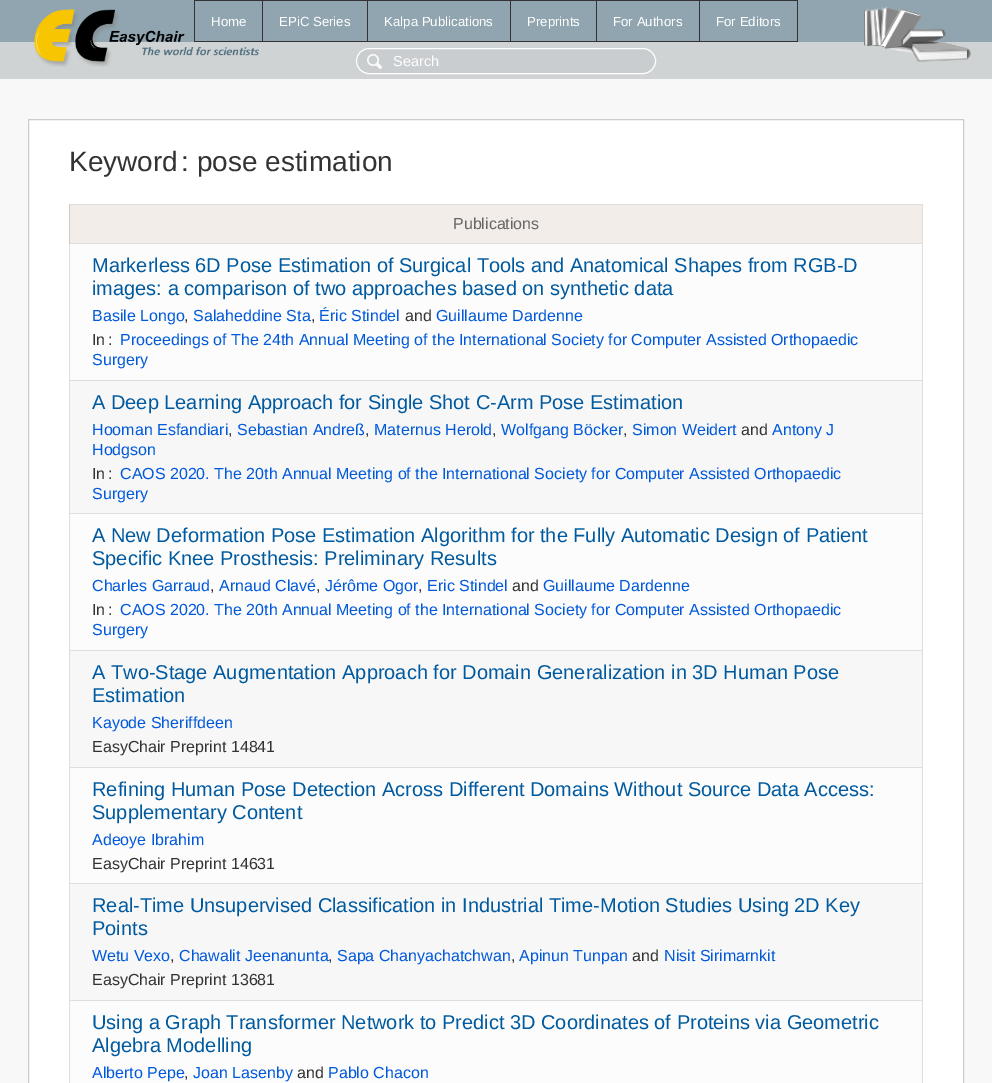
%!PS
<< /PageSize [992 1083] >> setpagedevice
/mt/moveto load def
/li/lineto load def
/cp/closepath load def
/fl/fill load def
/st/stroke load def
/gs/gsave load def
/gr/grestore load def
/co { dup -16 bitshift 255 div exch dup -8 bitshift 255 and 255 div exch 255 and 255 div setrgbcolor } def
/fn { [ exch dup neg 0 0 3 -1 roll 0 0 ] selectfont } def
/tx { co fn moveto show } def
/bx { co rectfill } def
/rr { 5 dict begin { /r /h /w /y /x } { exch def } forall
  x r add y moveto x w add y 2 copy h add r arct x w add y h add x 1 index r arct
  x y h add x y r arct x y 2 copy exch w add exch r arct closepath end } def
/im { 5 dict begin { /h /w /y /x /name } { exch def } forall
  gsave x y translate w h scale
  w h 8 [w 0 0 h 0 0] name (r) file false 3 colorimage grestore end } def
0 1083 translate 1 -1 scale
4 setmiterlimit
0 0 992 1083 16#90A5B0 bx
0 43 991 35 16#D0D3D4 bx
0 42 992 1 16#D0D3D4 bx
(media/1.raw) 34 9 225 58 im
699 0 99 1 16#333333 bx
797 0 1 42 16#333333 bx
699 41 99 1 16#333333 bx
699 0 1 42 16#333333 bx
596 0 104 1 16#333333 bx
596 41 104 1 16#333333 bx
596 0 1 42 16#333333 bx
510 0 87 1 16#333333 bx
510 41 87 1 16#333333 bx
510 0 1 42 16#333333 bx
367 0 144 1 16#333333 bx
367 41 144 1 16#333333 bx
367 0 1 42 16#333333 bx
262 0 106 1 16#333333 bx
262 41 106 1 16#333333 bx
262 0 1 42 16#333333 bx
194 0 69 1 16#333333 bx
194 41 69 1 16#333333 bx
194 0 1 42 16#333333 bx
(media/2.raw) 864 6 107 56 im
991 42 1 37 16#D0D3D4 bx
0 78 992 1 16#D0D3D4 bx
16#C9CDD0 co
356 48 300 26 13 rr fl
(media/3.raw) 367 54 15 15 im
16#FFFFFF co
356.5 48.5 299 25 12.5 rr st
0 79 992 1004 16#F8F8F8 bx
16#FFFFFF co
28.5 119.5 mt 963.5 119.5 li 963.5 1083.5 li 28.5 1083.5 li cp gs fl gr
16#CCCCCC co
st
69 204 854 1 16#DEDEDE bx
922 204 1 879 16#DEDEDE bx
69 244 1 839 16#DEDEDE bx
70 205 852 38 16#F2EDE9 bx
69 243 854 1 16#DEDEDE bx
69 204 1 40 16#CCCCCC bx
70 244 852 136 16#FCFCFC bx
69 380 854 1 16#DEDEDE bx
70 381 852 132 16#F7F7F7 bx
69 513 854 1 16#DEDEDE bx
70 514 852 136 16#FCFCFC bx
69 650 854 1 16#DEDEDE bx
70 651 852 116 16#F7F7F7 bx
69 767 854 1 16#DEDEDE bx
70 768 852 115 16#FCFCFC bx
69 883 854 1 16#DEDEDE bx
70 884 852 116 16#F7F7F7 bx
69 1000 854 1 16#DEDEDE bx
70 1001 852 82 16#FCFCFC bx
(Home) 211 26 /LiberationSans-Regular 13.25 16#FFFFFF tx
(EPiC Series) 279 26 /LiberationSans-Regular 13.25 16#FFFFFF tx
(Kalpa Publications) 384 26 /LiberationSans-Regular 13.25 16#FFFFFF tx
(Preprints) 527 26 /LiberationSans-Regular 13.25 16#FFFFFF tx
(For Authors) 613 26 /LiberationSans-Regular 13.25 16#FFFFFF tx
(For Editors) 716 26 /LiberationSans-Regular 13.25 16#FFFFFF tx
(Search) 393 66 /LiberationSans-Regular 14.5 16#FFFFFF tx
(Keyword) 69 171 /LiberationSans-Regular 28 16#333333 tx
(: pose estimation) 181 171 /LiberationSans-Regular 28 16#333333 tx
(Publications) 453 229 /LiberationSans-Regular 16 16#666666 tx
(Markerless 6D Pose Estimation of Surgical Tools and Anatomical Shapes from RGB-D) 92 272 /LiberationSans-Regular 20 16#005A9F tx
(images: a comparison of two approaches based on synthetic data) 92 295 /LiberationSans-Regular 20 16#005A9F tx
(Basile Longo) 92 321 /LiberationSans-Regular 16 16#0059DB tx
(,) 184 321 /LiberationSans-Regular 16 16#333333 tx
(Salaheddine Sta) 193 321 /LiberationSans-Regular 16 16#0059DB tx
(,) 311 321 /LiberationSans-Regular 16 16#333333 tx
(Éric Stindel) 319 321 /LiberationSans-Regular 16 16#0059DB tx
(and) 405 321 /LiberationSans-Regular 16 16#333333 tx
(Guillaume Dardenne) 436 321 /LiberationSans-Regular 16 16#0059DB tx
(In) 92 345 /LiberationSans-Regular 16 16#333333 tx
(:) 108 345 /LiberationSans-Regular 16 16#333333 tx
(Proceedings of The 24th Annual Meeting of the International Society for Computer Assisted Orthopaedic) 120 345 /LiberationSans-Regular 16 16#0059DB tx
(Surgery) 92 365 /LiberationSans-Regular 16 16#0059DB tx
(A Deep Learning Approach for Single Shot C-Arm Pose Estimation) 92 409 /LiberationSans-Regular 20 16#005A9F tx
(Hooman Esfandiari) 92 435 /LiberationSans-Regular 16 16#0059DB tx
(,) 228 435 /LiberationSans-Regular 16 16#333333 tx
(Sebastian Andreß) 237 435 /LiberationSans-Regular 16 16#0059DB tx
(,) 365 435 /LiberationSans-Regular 16 16#333333 tx
(Maternus Herold) 374 435 /LiberationSans-Regular 16 16#0059DB tx
(,) 492 435 /LiberationSans-Regular 16 16#333333 tx
(Wolfgang Böcker) 501 435 /LiberationSans-Regular 16 16#0059DB tx
(,) 623 435 /LiberationSans-Regular 16 16#333333 tx
(Simon Weidert) 632 435 /LiberationSans-Regular 16 16#0059DB tx
(and) 741 435 /LiberationSans-Regular 16 16#333333 tx
(Antony J) 772 435 /LiberationSans-Regular 16 16#0059DB tx
(Hodgson) 92 455 /LiberationSans-Regular 16 16#0059DB tx
(In) 92 479 /LiberationSans-Regular 16 16#333333 tx
(:) 108 479 /LiberationSans-Regular 16 16#333333 tx
(CAOS 2020. The 20th Annual Meeting of the International Society for Computer Assisted Orthopaedic) 120 479 /LiberationSans-Regular 16 16#0059DB tx
(Surgery) 92 499 /LiberationSans-Regular 16 16#0059DB tx
(A New Deformation Pose Estimation Algorithm for the Fully Automatic Design of Patient) 92 542 /LiberationSans-Regular 20 16#005A9F tx
(Specific Knee Prosthesis: Preliminary Results) 92 565 /LiberationSans-Regular 20 16#005A9F tx
(Charles Garraud) 92 591 /LiberationSans-Regular 16 16#0059DB tx
(,) 210 591 /LiberationSans-Regular 16 16#333333 tx
(Arnaud Clavé) 219 591 /LiberationSans-Regular 16 16#0059DB tx
(,) 316 591 /LiberationSans-Regular 16 16#333333 tx
(Jérôme Ogor) 325 591 /LiberationSans-Regular 16 16#0059DB tx
(,) 418 591 /LiberationSans-Regular 16 16#333333 tx
(Eric Stindel) 427 591 /LiberationSans-Regular 16 16#0059DB tx
(and) 512 591 /LiberationSans-Regular 16 16#333333 tx
(Guillaume Dardenne) 543 591 /LiberationSans-Regular 16 16#0059DB tx
(In) 92 615 /LiberationSans-Regular 16 16#333333 tx
(:) 108 615 /LiberationSans-Regular 16 16#333333 tx
(CAOS 2020. The 20th Annual Meeting of the International Society for Computer Assisted Orthopaedic) 120 615 /LiberationSans-Regular 16 16#0059DB tx
(Surgery) 92 635 /LiberationSans-Regular 16 16#0059DB tx
(A Two-Stage Augmentation Approach for Domain Generalization in 3D Human Pose) 92 679 /LiberationSans-Regular 20 16#005A9F tx
(Estimation) 92 702 /LiberationSans-Regular 20 16#005A9F tx
(Kayode Sheriffdeen) 92 728 /LiberationSans-Regular 16 16#0059DB tx
(EasyChair Preprint 14841) 92 752 /LiberationSans-Regular 16 16#333333 tx
(Refining Human Pose Detection Across Different Domains Without Source Data Access:) 92 796 /LiberationSans-Regular 20 16#005A9F tx
(Supplementary Content) 92 819 /LiberationSans-Regular 20 16#005A9F tx
(Adeoye Ibrahim) 92 845 /LiberationSans-Regular 16 16#0059DB tx
(EasyChair Preprint 14631) 92 869 /LiberationSans-Regular 16 16#333333 tx
(Real-Time Unsupervised Classification in Industrial Time-Motion Studies Using 2D Key) 92 912 /LiberationSans-Regular 20 16#005A9F tx
(Points) 92 935 /LiberationSans-Regular 20 16#005A9F tx
(Wetu Vexo) 92 961 /LiberationSans-Regular 16 16#0059DB tx
(,) 170 961 /LiberationSans-Regular 16 16#333333 tx
(Chawalit Jeenanunta) 179 961 /LiberationSans-Regular 16 16#0059DB tx
(,) 328 961 /LiberationSans-Regular 16 16#333333 tx
(Sapa Chanyachatchwan) 337 961 /LiberationSans-Regular 16 16#0059DB tx
(,) 511 961 /LiberationSans-Regular 16 16#333333 tx
(Apinun Tunpan) 519 961 /LiberationSans-Regular 16 16#0059DB tx
(and) 632 961 /LiberationSans-Regular 16 16#333333 tx
(Nisit Sirimarnkit) 664 961 /LiberationSans-Regular 16 16#0059DB tx
(EasyChair Preprint 13681) 92 985 /LiberationSans-Regular 16 16#333333 tx
(Using a Graph Transformer Network to Predict 3D Coordinates of Proteins via Geometric) 92 1029 /LiberationSans-Regular 20 16#005A9F tx
(Algebra Modelling) 92 1052 /LiberationSans-Regular 20 16#005A9F tx
(Alberto Pepe) 92 1078 /LiberationSans-Regular 16 16#0059DB tx
(,) 184 1078 /LiberationSans-Regular 16 16#333333 tx
(Joan Lasenby) 193 1078 /LiberationSans-Regular 16 16#0059DB tx
(and) 297 1078 /LiberationSans-Regular 16 16#333333 tx
(Pablo Chacon) 328 1078 /LiberationSans-Regular 16 16#0059DB tx
showpage
